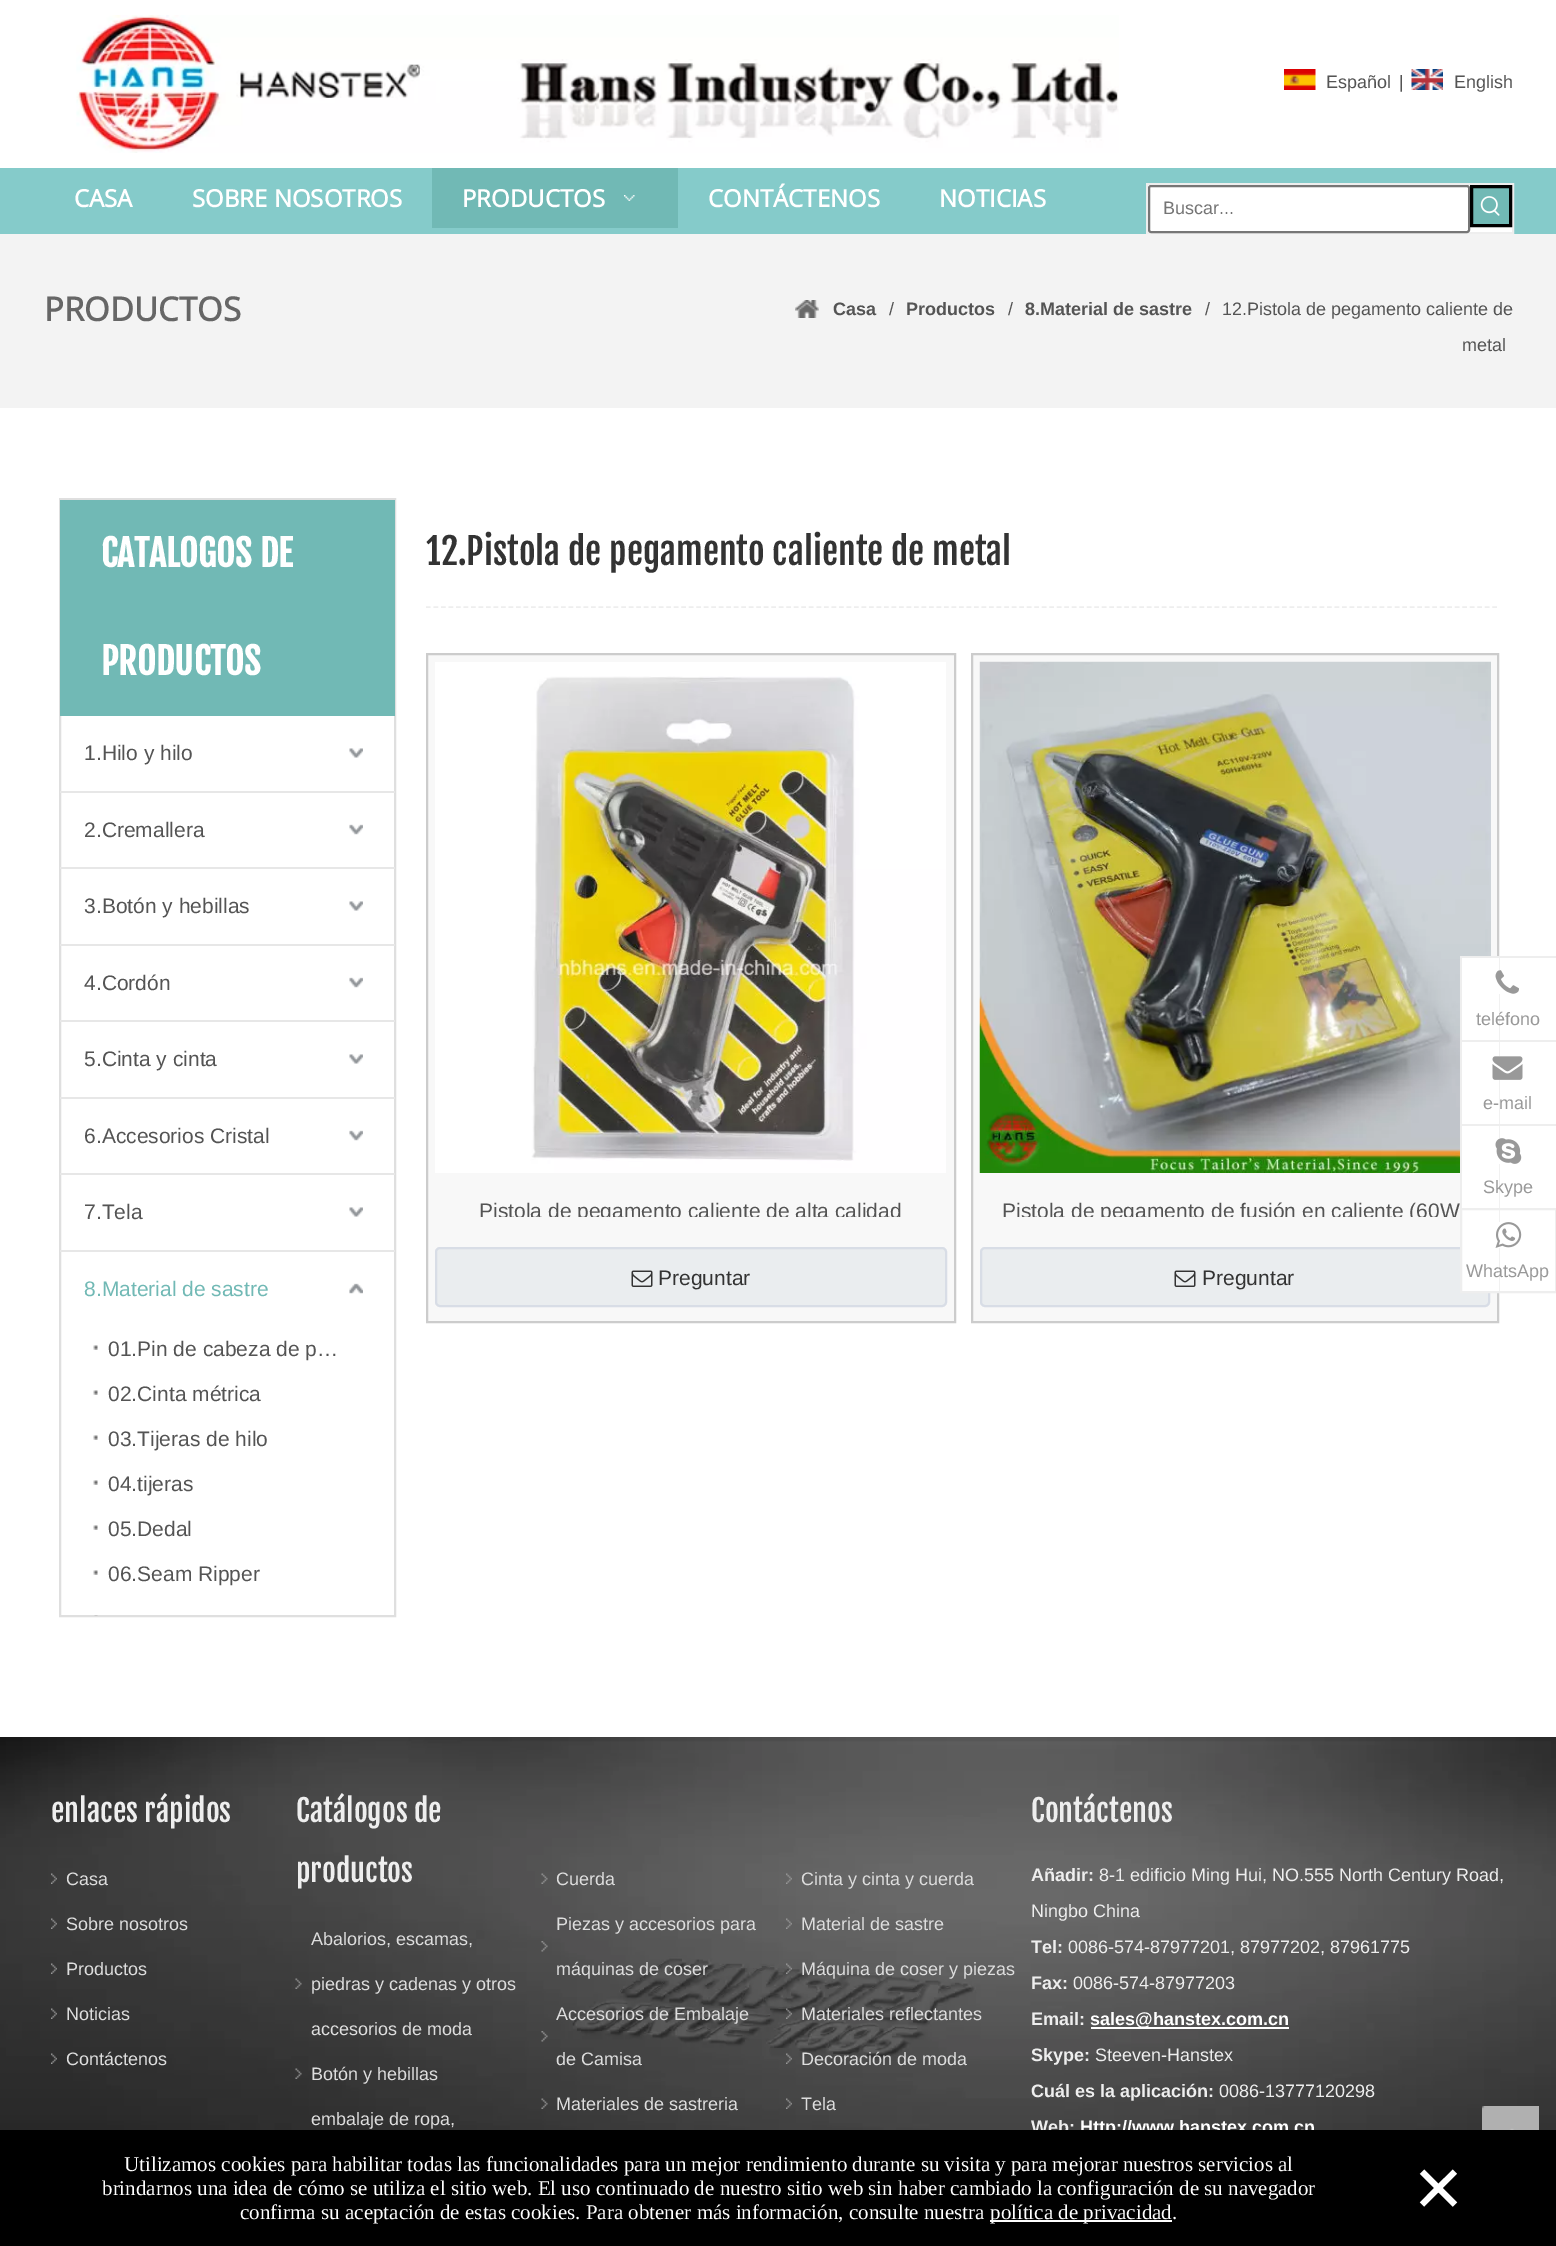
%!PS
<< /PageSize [1556 2246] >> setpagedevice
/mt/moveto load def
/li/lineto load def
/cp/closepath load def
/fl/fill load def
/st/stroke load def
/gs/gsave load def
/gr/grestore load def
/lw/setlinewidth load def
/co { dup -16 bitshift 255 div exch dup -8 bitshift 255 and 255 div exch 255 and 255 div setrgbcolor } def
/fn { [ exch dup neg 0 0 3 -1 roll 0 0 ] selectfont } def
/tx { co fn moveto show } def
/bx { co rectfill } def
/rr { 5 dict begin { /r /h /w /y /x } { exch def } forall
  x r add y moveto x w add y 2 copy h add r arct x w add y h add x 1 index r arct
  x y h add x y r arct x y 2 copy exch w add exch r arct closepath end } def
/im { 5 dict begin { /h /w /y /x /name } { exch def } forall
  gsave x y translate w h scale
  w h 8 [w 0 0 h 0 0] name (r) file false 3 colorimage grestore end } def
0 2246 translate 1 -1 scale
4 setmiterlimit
0 0 1556 2246 16#FFFFFF bx
(media/1.raw) 76 15 1043 138 im
(media/2.raw) 1284 69 32 21 im
(media/3.raw) 1411 69 32 21 im
0 168 1556 66 16#85CBCA bx
432 168 246 60 16#71B9B5 bx
(media/4.raw) 624 195 11 6 im
16#FFFFFF co
1147 184 mt 1513 184 li 1513 233 li 1147 233 li cp gs fl gr
16#EEEEEE co
2 lw
st
16#FFFFFF co
1149 186 320 46 2 rr gs fl gr
16#767676 co
st
16#71B9B5 co
1471.5 186.5 mt 1510.5 186.5 li 1510.5 225.5 li 1471.5 225.5 li cp gs fl gr
16#000000 co
3 lw
st
(media/5.raw) 1480 196 20 20 im
0 234 1556 174 16#F3F3F3 bx
(media/6.raw) 795 300 24 18 im
16#DFDFDF co
2 lw
60 499 335 1117 rectstroke
60 500 335 216 16#71B9B5 bx
(media/7.raw) 349 748 14 10 im
60 791 335 2 16#E7E7E7 bx
(media/8.raw) 349 824 14 11 im
60 867 335 2 16#E7E7E7 bx
(media/7.raw) 349 901 14 10 im
60 944 335 2 16#E7E7E7 bx
(media/8.raw) 349 977 14 11 im
60 1020 335 2 16#E7E7E7 bx
(media/7.raw) 349 1054 14 10 im
60 1097 335 2 16#E7E7E7 bx
(media/8.raw) 349 1130 14 11 im
60 1173 335 2 16#E7E7E7 bx
(media/7.raw) 349 1207 14 10 im
60 1250 335 2 16#E7E7E7 bx
(media/9.raw) 349 1283 14 11 im
(media/10.raw) 93 1345 5 5 im
(media/10.raw) 93 1390 5 5 im
(media/10.raw) 93 1435 5 5 im
(media/10.raw) 93 1480 5 5 im
(media/10.raw) 93 1525 5 5 im
(media/10.raw) 93 1570 5 5 im
(media/11.raw) 94 1615 4 1 im
16#EEEEEE co
1.5 lw
[4.5 3.01] 0 setdash
426 607 mt 1498.5 607 li st
16#F8F8F8 co
427 654 mt 955 654 li 955 1322 li 427 1322 li cp gs fl gr
16#CCCCCC co
2 lw
[] 0 setdash
st
(media/12.raw) 435 662 511 511 im
16#EAEDEF co
436 1248 510 58 4 rr gs fl gr
16#D8DDE6 co
st
(media/13.raw) 631 1270 22 17 im
16#F8F8F8 co
972 654 mt 1498 654 li 1498 1322 li 972 1322 li cp gs fl gr
16#CCCCCC co
st
(media/14.raw) 979 661 512 512 im
16#EAEDEF co
981 1248 508 58 4 rr gs fl gr
16#D8DDE6 co
st
(media/13.raw) 1174 1270 22 17 im
(media/15.raw) 0 1737 1556 393 im
(media/16.raw) 51 1873 6 11 im
(media/17.raw) 51 1918 6 11 im
(media/18.raw) 51 1963 6 11 im
(media/19.raw) 51 2008 6 11 im
(media/20.raw) 51 2053 6 11 im
(media/21.raw) 295 1978 7 11 im
(media/22.raw) 295 2068 7 11 im
(media/23.raw) 541 1873 7 11 im
(media/24.raw) 541 1941 7 11 im
(media/25.raw) 541 2031 7 11 im
(media/26.raw) 541 2098 7 11 im
(media/27.raw) 786 1873 6 11 im
(media/28.raw) 786 1918 6 11 im
(media/29.raw) 786 1963 6 11 im
(media/30.raw) 786 2008 6 11 im
(media/31.raw) 786 2053 6 11 im
(media/32.raw) 786 2098 6 11 im
1462 958 37 82 16#FFFFFF bx
1460 956 96 2 16#EEEEEE bx
1460 956 2 84 16#EEEEEE bx
(media/33.raw) 1495 970 24 24 im
1462 1042 37 82 16#FFFFFF bx
1460 1040 96 2 16#EEEEEE bx
1460 1040 2 84 16#EEEEEE bx
(media/34.raw) 1492 1056 31 24 im
1462 1126 37 82 16#FFFFFF bx
1460 1124 96 2 16#EEEEEE bx
1460 1124 2 84 16#EEEEEE bx
(media/35.raw) 1495 1138 27 26 im
1462 1210 37 81 16#FFFFFF bx
16#EEEEEE co
1461 1209 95 83 rectstroke
(media/36.raw) 1495 1222 27 26 im
1091 2027 198 2 16#FFFFFF bx
(media/37.raw) 1482 2106 57 24 im
(Español) 1326 88 /LiberationSans-Regular 18 16#545454 tx
(|) 1399 88 /LiberationSans-Regular 18 16#545454 tx
(English) 1454 88 /LiberationSans-Regular 18 16#545454 tx
(CASA) 74 207 /OpenSans-Bold 24 16#FFFFFF tx
(SOBRE NOSOTROS) 192 207 /OpenSans-Bold 24 16#FFFFFF tx
(PRODUCTOS) 462 207 /OpenSans-Bold 24 16#FFFFFF tx
(CONTÁCTENOS) 708 207 /OpenSans-Bold 24 16#FFFFFF tx
(NOTICIAS) 939 207 /OpenSans-Bold 24 16#FFFFFF tx
(Buscar...) 1163 214 /LiberationSans-Regular 18 16#757575 tx
(PRODUCTOS) 44 321 /OpenSans-Bold 33 16#666666 tx
(Casa) 833 315 /LiberationSans-Bold 18 16#545454 tx
(/) 889 315 /LiberationSans-Regular 18 16#545454 tx
(Productos) 906 315 /LiberationSans-Bold 18 16#545454 tx
(/) 1008 315 /LiberationSans-Regular 18 16#545454 tx
(8.Material de sastre) 1025 315 /LiberationSans-Bold 18 16#545454 tx
(/) 1205 315 /LiberationSans-Regular 18 16#545454 tx
(12.Pistola de pegamento caliente de) 1222 315 /LiberationSans-Regular 18 16#545454 tx
(metal) 1462 351 /LiberationSans-Regular 18 16#545454 tx
(CATALOGOS DE) 101 567 /FjallaOne-Bold 36 16#FFFFFF tx
(PRODUCTOS) 101 675 /FjallaOne-Bold 36 16#FFFFFF tx
(1.Hilo y hilo) 84 760 /LiberationSans-Regular 21 16#545454 tx
(2.Cremallera) 84 837 /LiberationSans-Regular 21 16#545454 tx
(3.Botón y hebillas) 84 913 /LiberationSans-Regular 21 16#545454 tx
(4.Cordón) 84 990 /LiberationSans-Regular 21 16#545454 tx
(5.Cinta y cinta) 84 1066 /LiberationSans-Regular 21 16#545454 tx
(6.Accesorios Cristal) 84 1143 /LiberationSans-Regular 21 16#545454 tx
(7.Tela) 84 1219 /LiberationSans-Regular 21 16#545454 tx
(8.Material de sastre) 84 1296 /LiberationSans-Regular 21 16#71B9B5 tx
(01.Pin de cabeza de p…) 108 1356 /LiberationSans-Regular 21 16#545454 tx
(02.Cinta métrica) 108 1401 /LiberationSans-Regular 21 16#545454 tx
(03.Tijeras de hilo) 108 1446 /LiberationSans-Regular 21 16#545454 tx
(04.tijeras) 108 1491 /LiberationSans-Regular 21 16#545454 tx
(05.Dedal) 108 1536 /LiberationSans-Regular 21 16#545454 tx
(06.Seam Ripper) 108 1581 /LiberationSans-Regular 21 16#545454 tx
(12.Pistola de pegamento caliente de metal) 426 565 /FjallaOne-Regular 36 16#333333 tx
gs
435 1188 512 29 rectclip
(Pistola de pegamento caliente de alta calidad) 479 1218 /LiberationSans-Regular 21 16#545454 tx
gr
(Preguntar) 658 1285 /LiberationSans-Regular 21 16#333333 tx
gs
980 1188 510 29 rectclip
(Pistola de pegamento de fusión en caliente \(60W) 1002 1218 /LiberationSans-Regular 21 16#545454 tx
gr
(Preguntar) 1202 1285 /LiberationSans-Regular 21 16#333333 tx
(enlaces rápidos) 51 1822 /FjallaOne-Regular 30 16#EEEEEE tx
(Casa) 66 1885 /LiberationSans-Regular 18 16#DDDDDD tx
(Sobre nosotros) 66 1930 /LiberationSans-Regular 18 16#DDDDDD tx
(Productos) 66 1975 /LiberationSans-Regular 18 16#DDDDDD tx
(Noticias) 66 2020 /LiberationSans-Regular 18 16#DDDDDD tx
(Contáctenos) 66 2065 /LiberationSans-Regular 18 16#DDDDDD tx
(Catálogos de) 296 1822 /FjallaOne-Regular 30 16#EEEEEE tx
(productos) 296 1882 /FjallaOne-Regular 30 16#EEEEEE tx
(Abalorios, escamas,) 311 1945 /LiberationSans-Regular 18 16#DDDDDD tx
(piedras y cadenas y otros) 311 1990 /LiberationSans-Regular 18 16#DDDDDD tx
(accesorios de moda) 311 2035 /LiberationSans-Regular 18 16#DDDDDD tx
(Botón y hebillas) 311 2080 /LiberationSans-Regular 18 16#DDDDDD tx
(embalaje de ropa,) 311 2125 /LiberationSans-Regular 18 16#DDDDDD tx
(Cuerda) 556 1885 /LiberationSans-Regular 18 16#DDDDDD tx
(Piezas y accesorios para) 556 1930 /LiberationSans-Regular 18 16#DDDDDD tx
(máquinas de coser) 556 1975 /LiberationSans-Regular 18 16#DDDDDD tx
(Accesorios de Embalaje) 556 2020 /LiberationSans-Regular 18 16#DDDDDD tx
(de Camisa) 556 2065 /LiberationSans-Regular 18 16#DDDDDD tx
(Materiales de sastreria) 556 2110 /LiberationSans-Regular 18 16#DDDDDD tx
(Cinta y cinta y cuerda) 801 1885 /LiberationSans-Regular 18 16#DDDDDD tx
(Material de sastre) 801 1930 /LiberationSans-Regular 18 16#DDDDDD tx
(Máquina de coser y piezas) 801 1975 /LiberationSans-Regular 18 16#DDDDDD tx
(Materiales reflectantes) 801 2020 /LiberationSans-Regular 18 16#DDDDDD tx
(Decoración de moda) 801 2065 /LiberationSans-Regular 18 16#DDDDDD tx
(Tela) 801 2110 /LiberationSans-Regular 18 16#DDDDDD tx
(teléfono) 1476 1025 /LiberationSans-Regular 18 16#999999 tx
(e-mail) 1483 1109 /LiberationSans-Regular 18 16#999999 tx
(Skype) 1483 1193 /LiberationSans-Regular 18 16#999999 tx
(WhatsApp) 1466 1277 /LiberationSans-Regular 18 16#999999 tx
(Contáctenos) 1031 1822 /FjallaOne-Regular 30 16#EEEEEE tx
(Añadir:) 1031 1881 /LiberationSans-Bold 18 16#EEEEEE tx
(8-1 edificio Ming Hui, NO.555 North Century Road,) 1099 1881 /LiberationSans-Regular 18 16#EEEEEE tx
(Ningbo China) 1031 1917 /LiberationSans-Regular 18 16#EEEEEE tx
(Tel:) 1031 1953 /LiberationSans-Bold 18 16#EEEEEE tx
(0086-574-87977201, 87977202, 87961775) 1068 1953 /LiberationSans-Regular 18 16#EEEEEE tx
(Fax:) 1031 1989 /LiberationSans-Bold 18 16#EEEEEE tx
(0086-574-87977203) 1073 1989 /LiberationSans-Regular 18 16#EEEEEE tx
(Email:) 1031 2025 /LiberationSans-Bold 18 16#EEEEEE tx
(sales@hanstex.com.cn) 1090 2025 /LiberationSans-Bold 18 16#FFFFFF tx
(Skype:) 1031 2061 /LiberationSans-Bold 18 16#EEEEEE tx
(Steeven-Hanstex) 1095 2061 /LiberationSans-Regular 18 16#EEEEEE tx
(Cuál es la aplicación:) 1031 2097 /LiberationSans-Bold 18 16#EEEEEE tx
(0086-13777120298) 1219 2097 /LiberationSans-Regular 18 16#EEEEEE tx
(Web:) 1031 2133 /LiberationSans-Bold 18 16#EEEEEE tx
(Http://www.hanstex.com.cn) 1080 2133 /LiberationSans-Bold 18 16#FFFFFF tx
0 2130 1556 116 16#000000 bx
(Utilizamos cookies para habilitar todas las funcionalidades para un mejor rendimiento durante su visita y para mejorar nuestros servicios al) 124 2171 /LiberationSerif-Regular 21 16#FFFFFF tx
(brindarnos una idea de cómo se utiliza el sitio web. El uso continuado de nuestro sitio web sin haber cambiado la configuración de su navegador) 102 2195 /LiberationSerif-Regular 21 16#FFFFFF tx
(confirma su aceptación de estas cookies. Para obtener más información, consulte nuestra) 240 2219 /LiberationSerif-Regular 21 16#FFFFFF tx
990 2220 182 2 16#FFFFFF bx
(política de privacidad.) 990 2219 /LiberationSerif-Regular 21 16#FFFFFF tx
(×) 1413 2218 /LiberationSerif-Bold 90 16#FFFFFF tx
showpage
